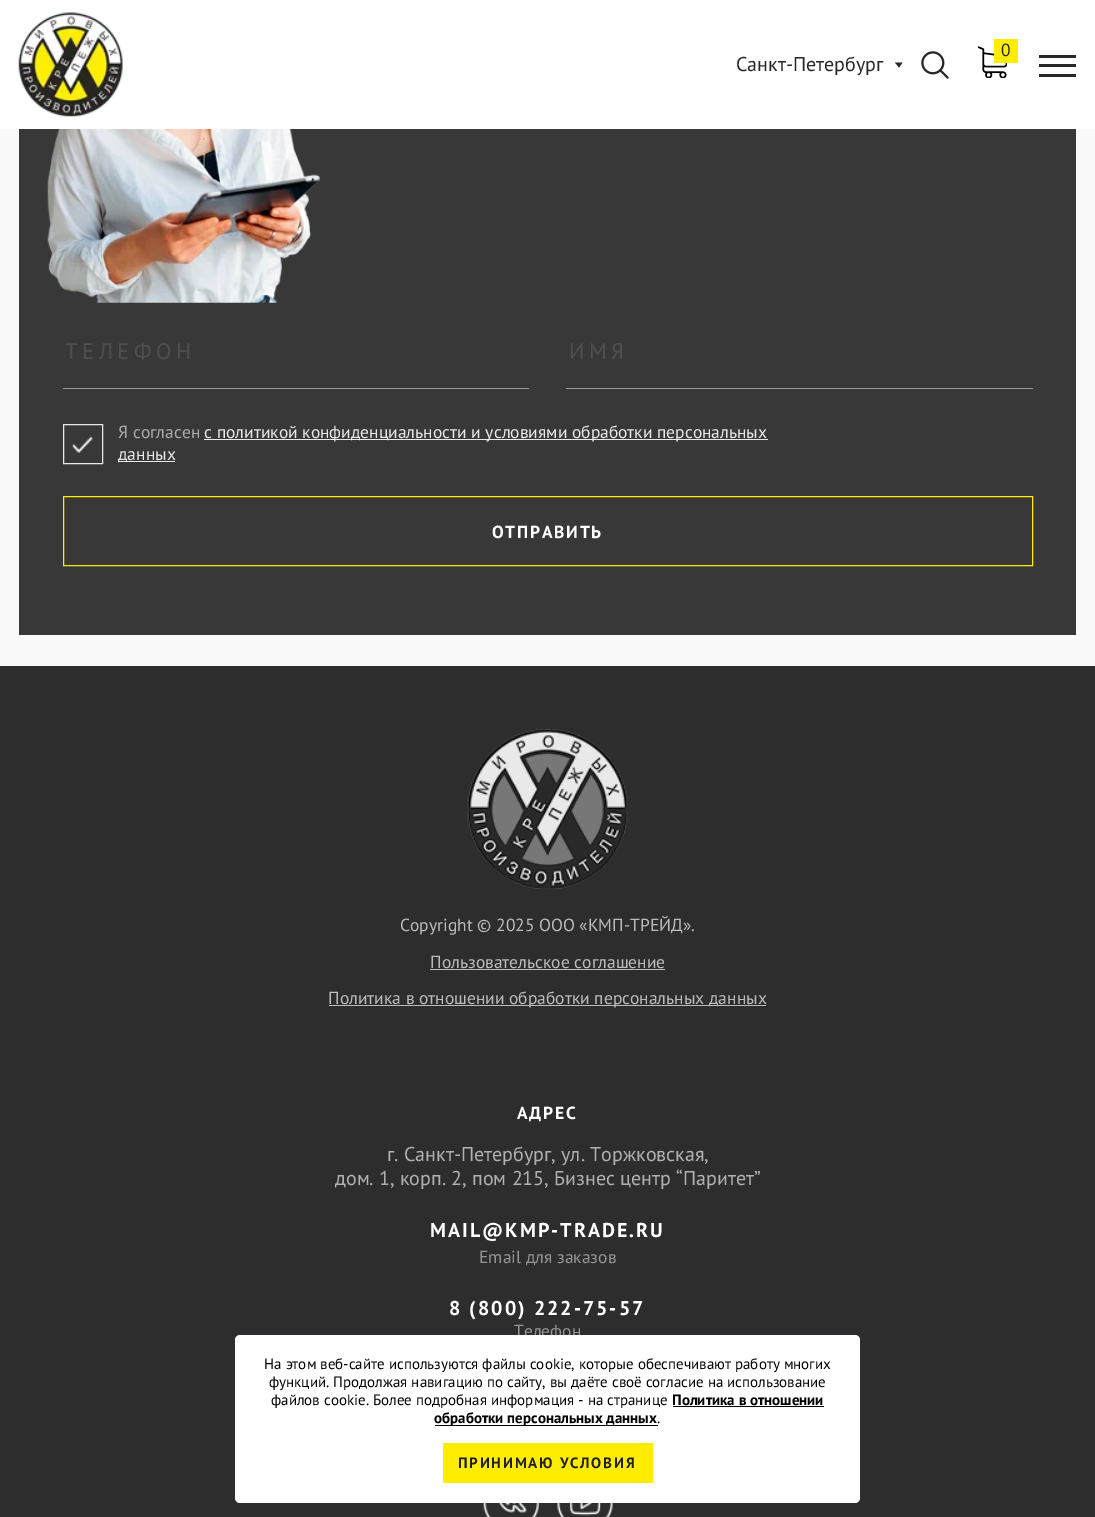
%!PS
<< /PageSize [1095 1517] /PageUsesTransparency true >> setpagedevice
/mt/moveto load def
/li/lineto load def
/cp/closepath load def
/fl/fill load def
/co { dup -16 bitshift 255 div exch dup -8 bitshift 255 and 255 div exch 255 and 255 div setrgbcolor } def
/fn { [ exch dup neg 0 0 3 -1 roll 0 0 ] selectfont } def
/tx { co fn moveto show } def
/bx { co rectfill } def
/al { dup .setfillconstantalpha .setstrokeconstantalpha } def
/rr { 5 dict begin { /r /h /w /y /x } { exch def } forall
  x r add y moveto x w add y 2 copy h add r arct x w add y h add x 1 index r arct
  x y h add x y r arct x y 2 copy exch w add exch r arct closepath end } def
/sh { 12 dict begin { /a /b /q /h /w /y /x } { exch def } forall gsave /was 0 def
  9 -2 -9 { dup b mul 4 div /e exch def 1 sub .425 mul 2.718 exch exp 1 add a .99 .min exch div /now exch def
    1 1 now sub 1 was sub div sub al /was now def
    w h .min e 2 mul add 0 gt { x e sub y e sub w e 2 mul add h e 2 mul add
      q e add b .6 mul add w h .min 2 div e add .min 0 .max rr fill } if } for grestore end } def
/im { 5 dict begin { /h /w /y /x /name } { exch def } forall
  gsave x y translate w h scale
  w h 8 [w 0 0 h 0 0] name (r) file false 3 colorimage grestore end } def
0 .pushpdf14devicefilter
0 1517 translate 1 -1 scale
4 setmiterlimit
0 0 1095 1517 16#2D2D2D bx
0 129 1095 537 16#F9F9F9 bx
0 0 1095 129 16#FFFFFF bx
(media/1.raw) 18 12 105 105 im
16#282828 co
895 62.5 mt 902.5 62.5 li 899 67.5 li cp fl
(media/2.raw) 921 51 28 28 im
(media/3.raw) 978 46 29 32 im
994 39 24 24 16#FEED01 bx
1039 64 37 3 16#282828 bx
1039 55 37 3 16#282828 bx
1039 74 37 3 16#282828 bx
19 129 1057 506 16#383838 bx
(media/4.raw) 47 129 273 174 im
63 388 466 1 16#9C9C9C bx
566 388 467 1 16#9C9C9C bx
16#E8E8E8 co
63.5 424.5 39 39 rectstroke
(media/5.raw) 72 436 21 17 im
204 439 564 1 16#E8E8E8 bx
118 461 57 1 16#E8E8E8 bx
16#FEED01 co
63.5 496.5 969 69 rectstroke
(media/6.raw) 467 729 161 160 im
430 969 235 1 16#BCBCBC bx
329 1005 437 1 16#BCBCBC bx
(media/7.raw) 483 1503 56 14 im
(media/8.raw) 557 1503 56 14 im
16#223C50 co
235 1335 625 168 5 5 .2 sh
(Санкт-Петербург) 736 71 /PTSans-Regular 20 16#282828 tx
(0) 1001 56 /PTSans-Regular 17.5 16#282828 tx
/PTSans-Regular 22.5 fn
16#4F4F4F co
65 359 mt 4.5 0 (ТЕЛЕФОН) ashow
569 359 mt 4.5 0 (ИМЯ) ashow
(Я согласен) 118 438 /PTSans-Regular 17.5 16#ABABAB tx
(с политикой конфиденциальности и условиями обработки персональных) 204 438 /PTSans-Regular 17.5 16#E8E8E8 tx
(данных) 118 460 /PTSans-Regular 17.5 16#E8E8E8 tx
/PTSans-Bold 17.5 fn
16#FFFFFF co
492 538 mt 1.75 0 (ОТПРАВИТЬ) ashow
(Copyright © 2025 ООО «КМП-ТРЕЙД».) 400 931 /PTSans-Regular 17.5 16#BCBCBC tx
(Пользовательское соглашение) 430 968 /PTSans-Regular 17.5 16#BCBCBC tx
(Политика в отношении обработки персональных данных) 328 1004 /PTSans-Regular 17.5 16#BCBCBC tx
/PTSans-Bold 17.5 fn
16#FFFFFF co
517 1119 mt 1.75 0 (АДРЕС) ashow
(г. Санкт-Петербург, ул. Торжковская,) 387 1161 /PTSans-Regular 20 16#B1B1B1 tx
(дом. 1, корп. 2, пом 215, Бизнес центр “Паритет”) 335 1185 /PTSans-Regular 20 16#B1B1B1 tx
/PTSans-Bold 20 fn
16#FFFFFF co
430 1237 mt 2 0 (MAIL@KMP-TRADE.RU) ashow
(Email для заказов) 479 1263 /PTSans-Regular 17.5 16#959595 tx
/PTSans-Bold 20 fn
16#FFFFFF co
449 1315 mt 2 0 (8 \(800\) 222-75-57) ashow
(Телефон) 514 1337 /PTSans-Regular 17.5 16#959595 tx
16#FFFFFF co
235 1335 625 168 5 rr fl
(На этом веб-сайте используются файлы cookie, которые обеспечивают работу многих) 264 1369 /PTSans-Regular 15 16#000000 tx
(функций. Продолжая навигацию по сайту, вы даёте своё согласие на использование) 269 1387 /PTSans-Regular 15 16#000000 tx
(файлов cookie. Более подробная информация - на странице) 271 1405 /PTSans-Regular 15 16#000000 tx
(Политика в отношении) 672 1405 /PTSans-Bold 15 16#000000 tx
673 1406 151 1 16#000000 bx
435 1425 223 1 16#000000 bx
(обработки персональных данных) 434 1423 /PTSans-Bold 15 16#000000 tx
(.) 657 1423 /PTSans-Regular 15 16#000000 tx
443 1443 210 40 16#FEED01 bx
/PTSans-Bold 15 fn
16#202020 co
458 1468 mt 1.75 0 (ПРИНИМАЮ УСЛОВИЯ) ashow
.poppdf14devicefilter showpage
